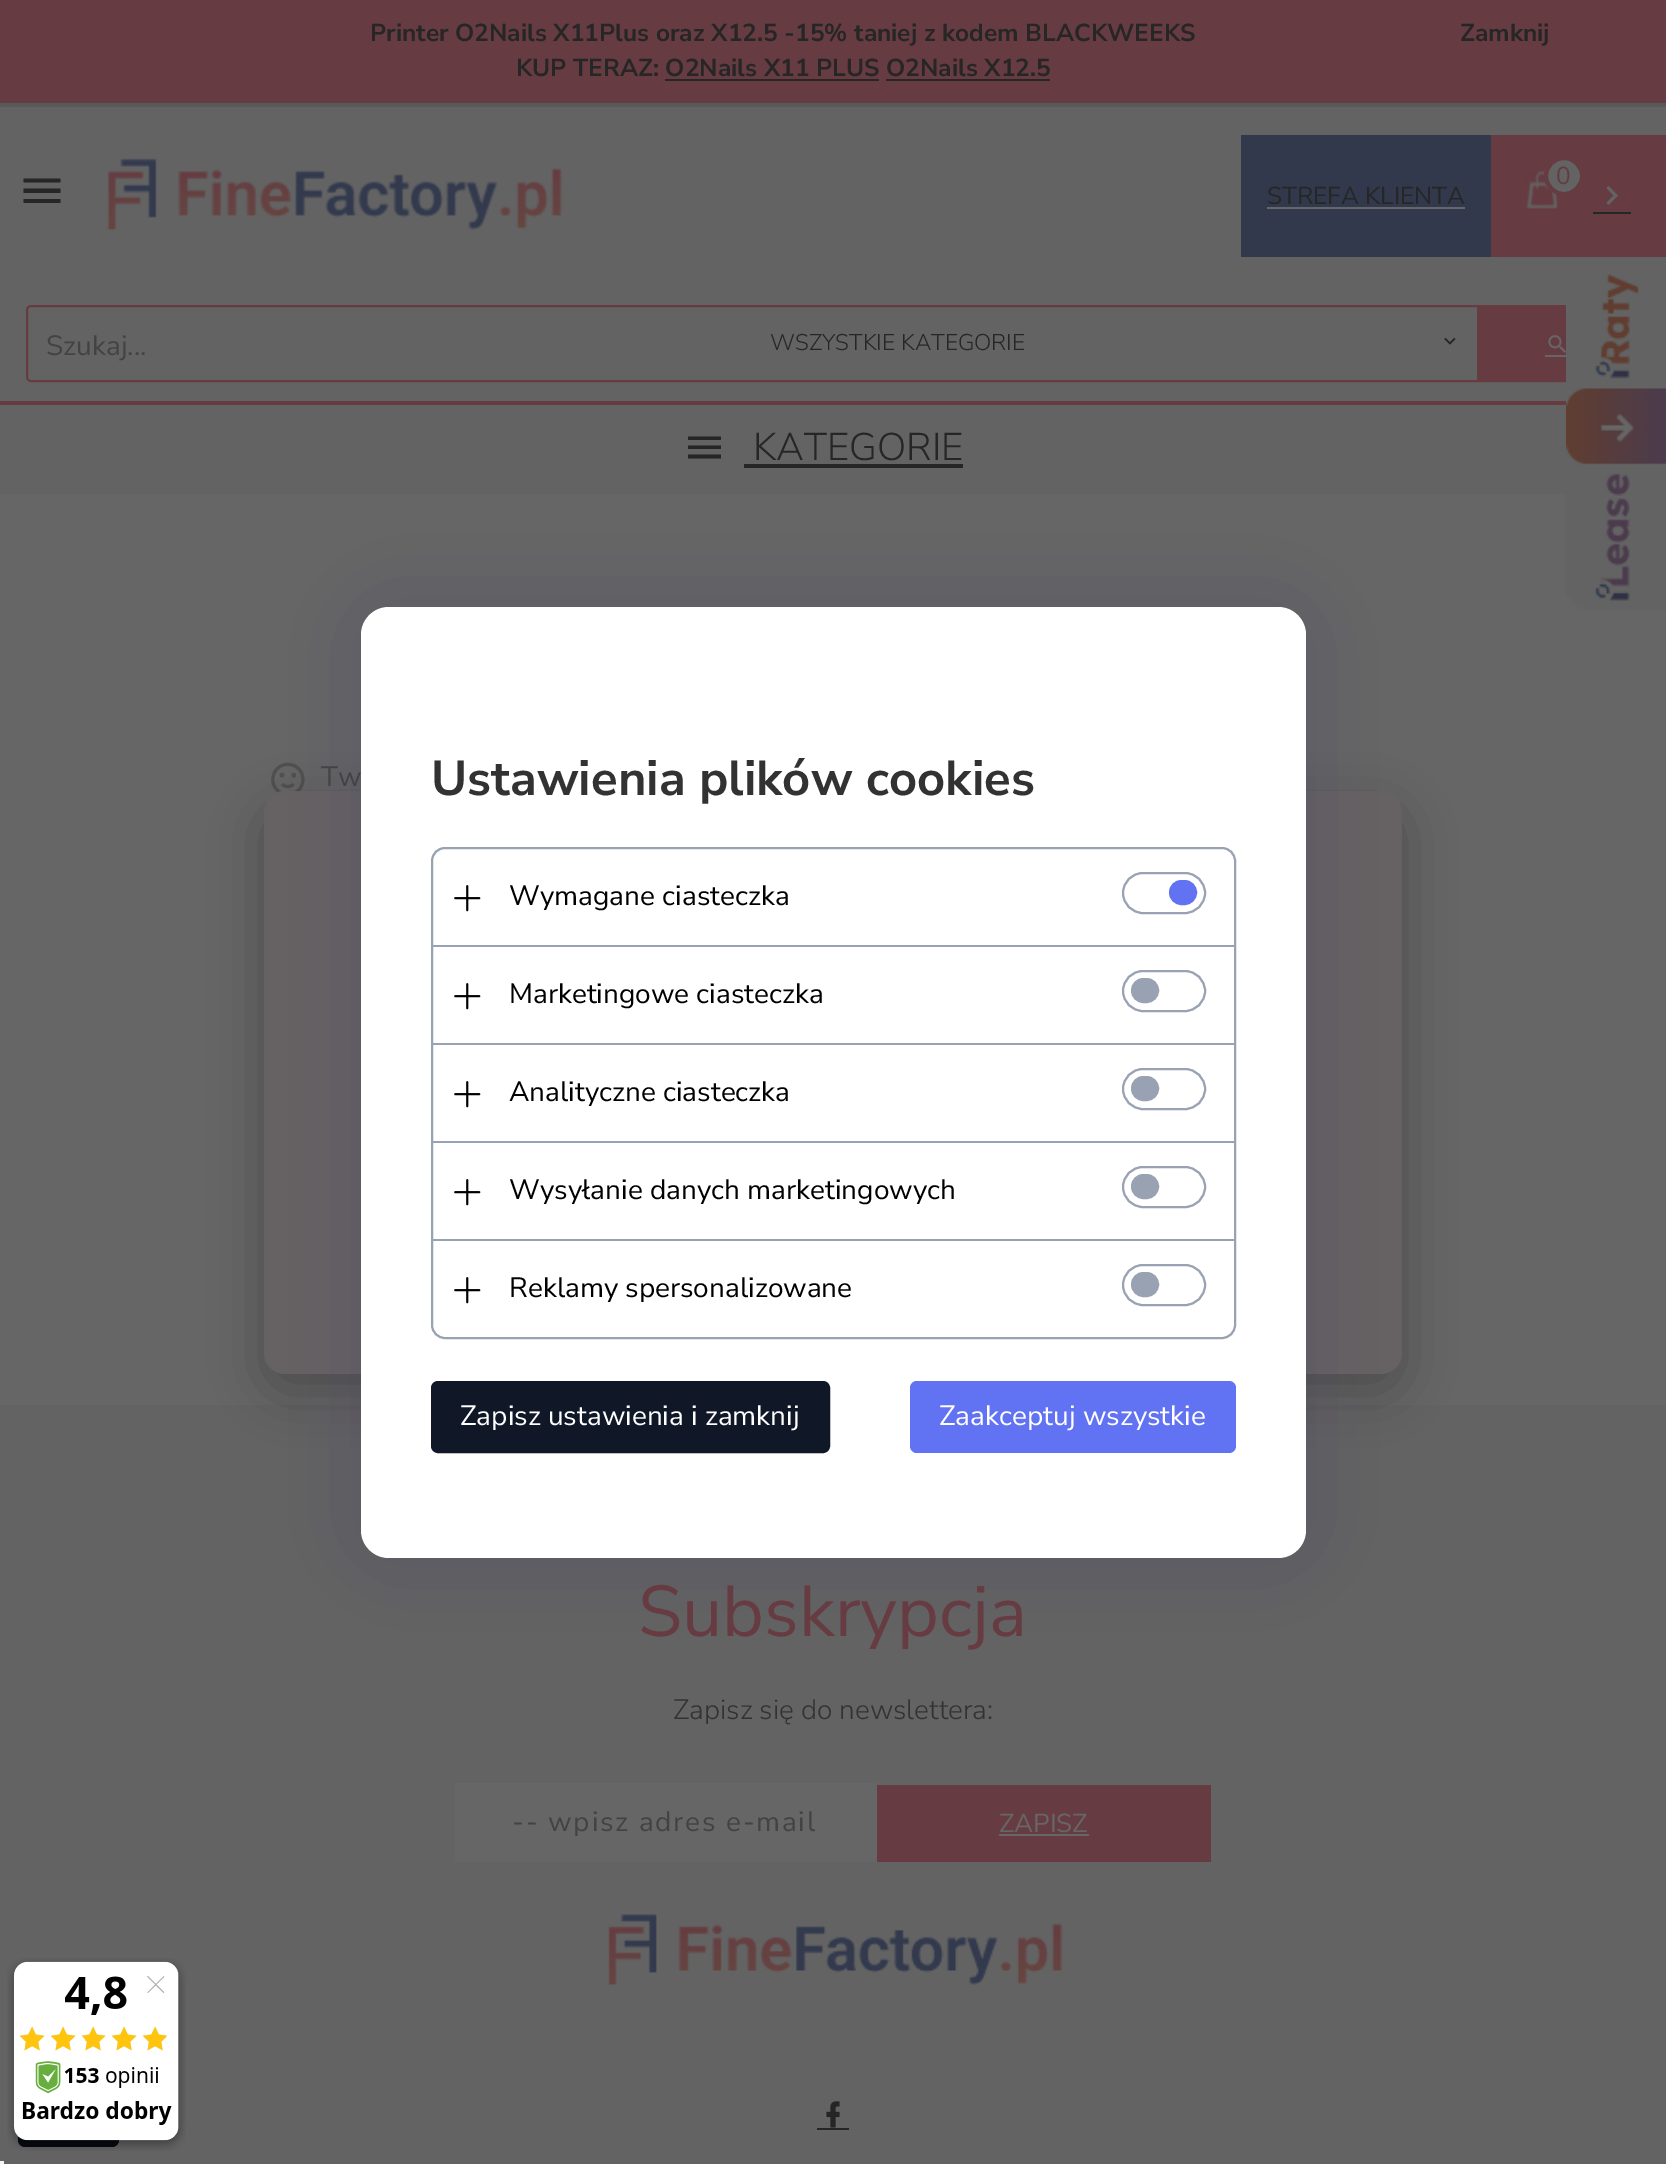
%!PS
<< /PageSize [1666 2164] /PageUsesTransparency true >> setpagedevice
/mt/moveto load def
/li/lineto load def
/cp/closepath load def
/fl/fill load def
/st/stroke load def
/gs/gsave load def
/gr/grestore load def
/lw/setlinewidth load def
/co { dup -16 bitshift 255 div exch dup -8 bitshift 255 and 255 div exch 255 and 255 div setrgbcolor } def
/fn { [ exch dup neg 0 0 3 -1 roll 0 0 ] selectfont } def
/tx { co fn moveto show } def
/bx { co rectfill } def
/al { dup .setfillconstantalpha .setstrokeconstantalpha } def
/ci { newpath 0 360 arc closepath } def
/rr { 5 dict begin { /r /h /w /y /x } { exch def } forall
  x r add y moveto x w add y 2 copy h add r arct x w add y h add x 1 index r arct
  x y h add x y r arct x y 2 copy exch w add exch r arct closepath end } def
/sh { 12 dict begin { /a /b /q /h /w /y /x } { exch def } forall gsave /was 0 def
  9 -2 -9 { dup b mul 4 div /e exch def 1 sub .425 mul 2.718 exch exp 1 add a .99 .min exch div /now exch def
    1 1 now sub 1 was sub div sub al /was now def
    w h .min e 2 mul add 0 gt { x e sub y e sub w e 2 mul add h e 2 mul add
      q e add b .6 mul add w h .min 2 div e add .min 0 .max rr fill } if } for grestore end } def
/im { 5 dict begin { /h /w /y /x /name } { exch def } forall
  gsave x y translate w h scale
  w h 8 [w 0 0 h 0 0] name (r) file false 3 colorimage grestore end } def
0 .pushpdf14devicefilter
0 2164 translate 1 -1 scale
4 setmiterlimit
0 0 1666 2164 16#666666 bx
0 0 1666 103 16#663B41 bx
0 103 1666 4 16#595959 bx
665 79 214 2 16#262626 bx
886 79 164 2 16#262626 bx
0 107 1666 294 16#636363 bx
16#262626 co
23.5 178.5 mt 60.5 178.5 li 60.5 182.5 li 23.5 182.5 li cp 23.5 188.5 mt 60.5 188.5 li 60.5 193 li 23.5 193 li cp 23.5 199 mt 60.5 199 li 60.5 203 li 23.5 203 li cp fl
(media/1.raw) 107 158 456 72 im
1491 135 175 122 16#663B41 bx
(media/2.raw) 1526 171 32 38 im
16#636363 co
1564 176 18 ci gs fl gr
16#663B41 co
4 lw
st
16#636363 co
1606.5 203 mt 1613.5 195.5 li 1606.5 188 li 1608.5 186 li 1618 195.5 li 1608.5 205 li cp fl
1593 212 38 2 16#262626 bx
1241 135 250 122 16#32394C bx
1267 207 198 2 16#666666 bx
16#663B41 co
2 lw
27 306 1612 75 4 rr st
(media/3.raw) 1444 337 12 8 im
1477 307 89 73 16#663B41 bx
(media/4.raw) 1548 335 18 18 im
1545 355 25 2 16#666666 bx
0 405 1566 89 16#636363 bx
0 401 1566 4 16#663B41 bx
16#262626 co
688 436.5 mt 721 436.5 li 721 440 li 688 440 li cp 688 445.5 mt 721 445.5 li 721 449 li 688 449 li cp 688 454.5 mt 721 454.5 li 721 458.5 li 688 458.5 li cp fl
744 464 219 4 16#262626 bx
(media/5.raw) 271 762 34 31 im
(media/6.raw) 1566 274 100 337 im
0 1405 1666 759 16#636363 bx
16#000000 co
264 809 1138 582 21 26 .25 sh
16#666263 co
264 791 1138 583 21 rr fl
16#211A69 co
361 607 945 951 28 42 .15 sh
16#FFFFFF co
361 607 945 951 28 rr fl
16#98A2B3 co
432 848 803 490 13 rr st
(media/7.raw) 454 885 27 27 im
1123 873 82 40 20 rr st
16#6172F3 co
1170 881 26 23 11.5 rr gs fl gr
st
432 945 802 2 16#98A2B3 bx
(media/7.raw) 454 983 27 27 im
1123 971 82 40 20 rr st
1132 979 26 23 11.5 rr gs fl gr
st
432 1043 802 2 16#98A2B3 bx
(media/7.raw) 454 1081 27 27 im
1123 1069 82 40 20 rr st
1132 1077 26 23 11.5 rr gs fl gr
st
432 1141 802 2 16#98A2B3 bx
(media/7.raw) 454 1179 27 27 im
1123 1167 82 40 20 rr st
1132 1175 26 23 11.5 rr gs fl gr
st
432 1239 802 2 16#98A2B3 bx
(media/7.raw) 454 1277 27 27 im
1123 1265 82 40 20 rr st
1132 1273 26 23 11.5 rr gs fl gr
st
16#101828 co
432 1382 397 70 6 rr gs fl gr
st
16#6172F3 co
910 1381 326 72 7 rr fl
16#060A10 co
19 2059 99 87 6 rr gs fl gr
st
455 1783 422 79 16#666666 bx
877 1785 334 77 16#663B41 bx
999 1834 90 2 16#666666 bx
(media/8.raw) 608 1914 455 71 im
(media/9.raw) 826 2101 14 27 im
817 2128 32 2 16#262626 bx
(media/10.raw) 7 1958 179 193 im
0 2161 4 3 16#F5F5F5 bx
(Printer O2Nails X11Plus oraz X12.5 -15% taniej z kodem BLACKWEEKS) 370 41 /NunitoSans-Bold 24.5 16#262626 tx
(KUP TERAZ: O2Nails X11 PLUS O2Nails X12.5) 516 76 /NunitoSans-Bold 24.5 16#262626 tx
(Zamknij) 1460 41 /NunitoSans-Bold 24.5 16#262626 tx
(0) 1556 184 /NunitoSans-Regular 24.5 16#663B41 tx
(STREFA KLIENTA) 1267 204 /NunitoSans-Regular 24.5 16#262626 tx
(Szukaj...) 46 355 /NunitoSans-Regular 28 16#434343 tx
(WSZYSTKIE KATEGORIE) 770 350 /NunitoSans-Light 22.75 16#262626 tx
(KATEGORIE) 753 460 /NunitoSans-Light 38.5 16#262626 tx
(Tw) 321 786 /NunitoSans-Regular 28 16#434343 tx
(Ustawienia plików cookies) 431 795 /NunitoSans-Bold 49 16#323232 tx
(Wymagane ciasteczka) 509 905 /NunitoSans-Regular 28 16#000000 tx
(Marketingowe ciasteczka) 509 1003 /NunitoSans-Regular 28 16#000000 tx
(Analityczne ciasteczka) 509 1101 /NunitoSans-Regular 28 16#000000 tx
(Wysyłanie danych marketingowych) 509 1199 /NunitoSans-Regular 28 16#000000 tx
(Reklamy spersonalizowane) 509 1297 /NunitoSans-Regular 28 16#000000 tx
(Zapisz ustawienia i zamknij) 460 1425 /NunitoSans-Regular 28 16#FFFFFF tx
(Zaakceptuj wszystkie) 939 1425 /NunitoSans-Regular 28 16#FFFFFF tx
(Subskrypcja) 638 1636 /NunitoSans-Regular 71.75 16#663B41 tx
(Zapisz się do newslettera:) 673 1719 /NunitoSans-Light 28 16#323232 tx
/NunitoSans-Regular 28 fn
16#434343 co
512 1831 mt 1.75 0 (-- wpisz adres e-mail) ashow
(ZAPISZ) 999 1832 /NunitoSans-Regular 26 16#666666 tx
.poppdf14devicefilter showpage
